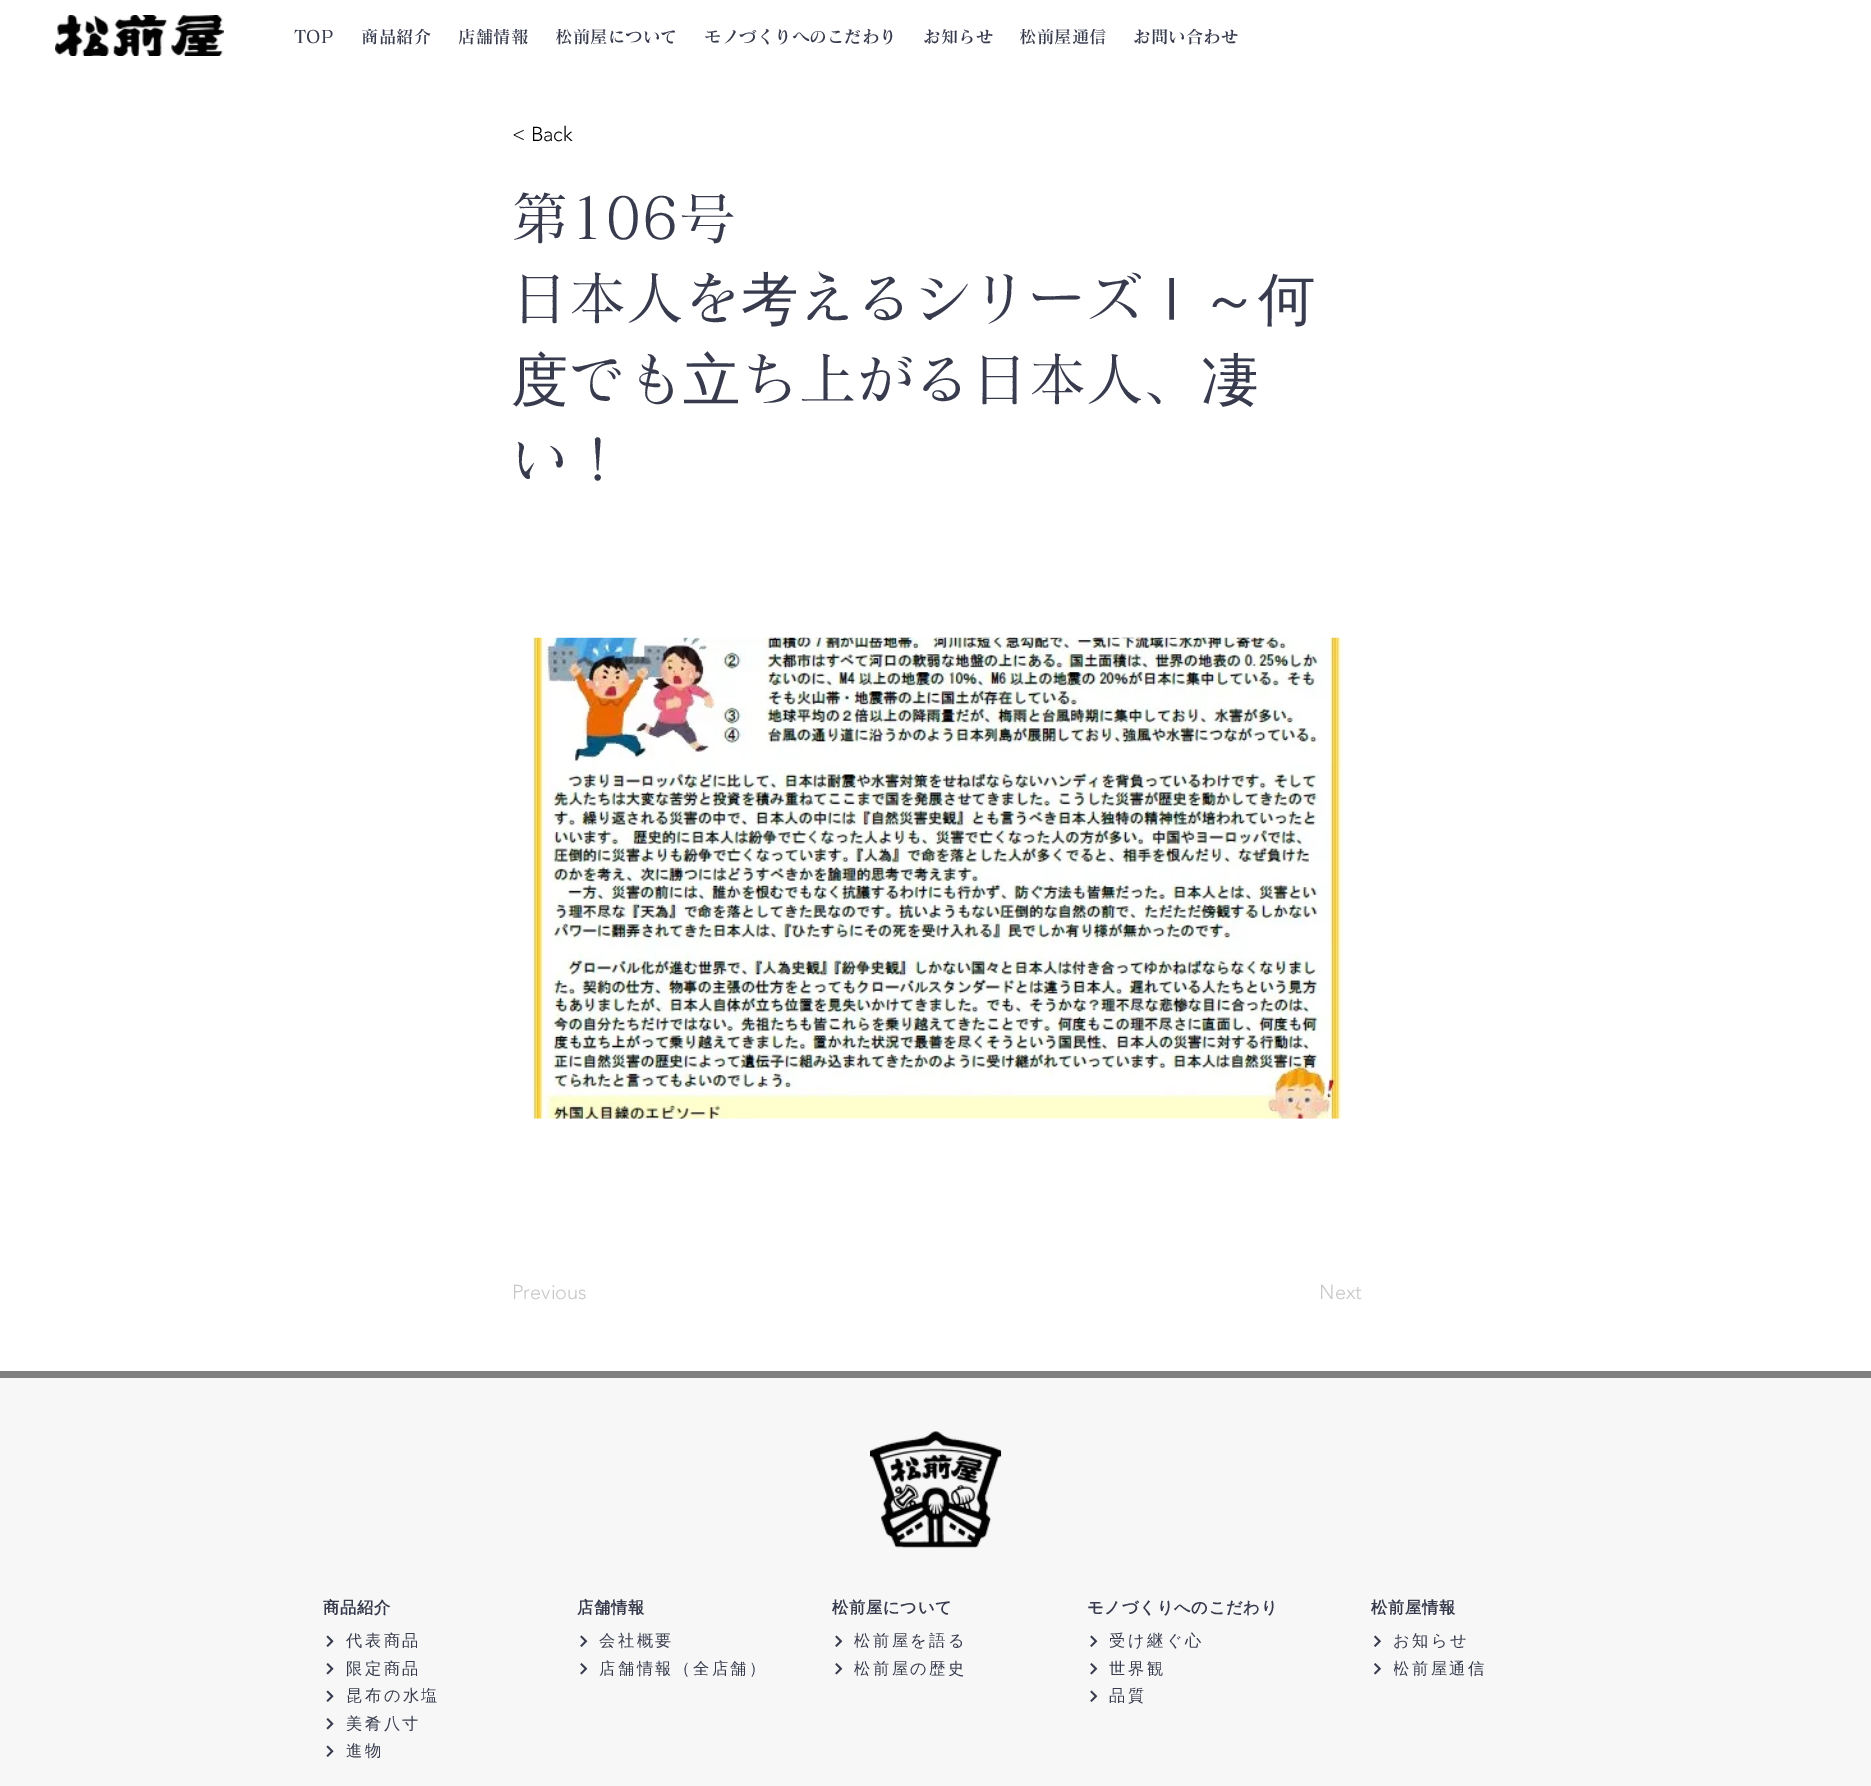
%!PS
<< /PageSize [1871 1786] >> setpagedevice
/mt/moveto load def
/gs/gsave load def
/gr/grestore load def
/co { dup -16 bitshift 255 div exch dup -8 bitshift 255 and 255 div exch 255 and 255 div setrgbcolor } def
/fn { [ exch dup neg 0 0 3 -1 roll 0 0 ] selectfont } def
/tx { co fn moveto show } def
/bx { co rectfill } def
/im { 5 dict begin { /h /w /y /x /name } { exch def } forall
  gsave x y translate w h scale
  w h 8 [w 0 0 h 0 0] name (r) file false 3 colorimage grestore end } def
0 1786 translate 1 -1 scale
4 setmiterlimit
0 0 1871 1786 16#FFFFFF bx
(media/1.raw) 55 15 169 41 im
(media/2.raw) 532 637 811 482 im
0 1378 1871 408 16#F7F7F7 bx
0 1371 1871 7 16#808080 bx
(media/3.raw) 870 1431 132 117 im
(media/4.raw) 326 1635 8 12 im
(media/5.raw) 580 1635 8 12 im
(media/5.raw) 835 1635 8 12 im
(media/5.raw) 1090 1635 8 12 im
(media/6.raw) 1374 1635 7 12 im
(media/7.raw) 326 1663 8 12 im
(media/8.raw) 580 1663 8 12 im
(media/8.raw) 835 1663 8 12 im
(media/8.raw) 1090 1663 8 12 im
(media/9.raw) 1374 1663 7 12 im
(media/4.raw) 326 1690 8 12 im
(media/5.raw) 1090 1690 8 12 im
(media/7.raw) 326 1718 8 12 im
(media/4.raw) 326 1745 8 12 im
(TOP) 294 43 /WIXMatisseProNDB-SemiBold 17.5 16#373B4D tx
(商品紹介) 361 43 /WIXMatisseProNDB-SemiBold 17.5 16#373B4D tx
(店舗情報) 458 43 /WIXMatisseProNDB-SemiBold 17.5 16#373B4D tx
(松前屋について) 555 43 /WIXMatisseProNDB-SemiBold 17.5 16#373B4D tx
(モノづくりへのこだわり) 704 43 /WIXMatisseProNDB-SemiBold 17.5 16#373B4D tx
(お知らせ) 923 43 /WIXMatisseProNDB-SemiBold 17.5 16#373B4D tx
(松前屋通信) 1019 43 /WIXMatisseProNDB-SemiBold 17.5 16#373B4D tx
(お問い合わせ) 1133 43 /WIXMatisseProNDB-SemiBold 17.5 16#373B4D tx
(< Back) 512 141 /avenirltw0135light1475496-Light 20 16#000000 tx
(第106号) 511 239 /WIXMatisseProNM-Medium 57.5 16#373B4D tx
(日本人を) 511 319 /WIXMatisseProNM-Medium 57.5 16#373B4D tx
(考) 741 319 /WenQuanYiZenHei-Medium 57.5 16#373B4D tx
(えるシリーズ) 798 319 /WIXMatisseProNM-Medium 57.5 16#373B4D tx
(Ⅰ～何) 1143 319 /WenQuanYiZenHei-Medium 57.5 16#373B4D tx
(度) 511 400 /WenQuanYiZenHei-Medium 57.5 16#373B4D tx
(でも) 568 400 /WIXMatisseProNM-Medium 57.5 16#373B4D tx
(立) 683 400 /WenQuanYiZenHei-Medium 57.5 16#373B4D tx
(ち上がる日本人、) 741 400 /WIXMatisseProNM-Medium 57.5 16#373B4D tx
(凄) 1201 400 /WenQuanYiZenHei-Medium 57.5 16#373B4D tx
(い！) 511 480 /WIXMatisseProNM-Medium 57.5 16#373B4D tx
(Previous) 512 1299 /avenirltw0135light1475496-Light 20 16#C7C7C7 tx
(Next) 1319 1299 /avenirltw0135light1475496-Light 20 16#C7C7C7 tx
/WenQuanYiZenHei-Bold 16.25 fn
16#373B4D co
323 1613 mt .75 0 (商品紹介) ashow
577 1613 mt .75 0 (店舗情報) ashow
832 1613 mt .75 0 (松前屋について) ashow
1087 1613 mt .75 0 (モノづくりへのこだわり) ashow
1371 1613 mt .75 0 (松前屋情報) ashow
/WenQuanYiZenHei-Medium 16.25 fn
346 1646 mt 2.5 0 (代表商品) ashow
599 1646 mt 2.5 0 (会社概要) ashow
854 1646 mt 2.5 0 (松前屋を語る) ashow
1109 1646 mt 2.5 0 (受け継ぐ心) ashow
1393 1646 mt 2.5 0 (お知らせ) ashow
346 1674 mt 2.5 0 (限定商品) ashow
599 1674 mt 2.5 0 (店舗情報（全店舗）) ashow
854 1674 mt 2.5 0 (松前屋の歴史) ashow
1109 1674 mt 2.5 0 (世界観) ashow
gs
1394 1658 92 22 rectclip
1393 1674 mt 2.5 0 (松前屋通信) ashow
gr
346 1701 mt 2.5 0 (昆布の水塩) ashow
1109 1701 mt 2.5 0 (品質) ashow
346 1729 mt 2.5 0 (美肴八寸) ashow
346 1756 mt 2.5 0 (進物) ashow
showpage
